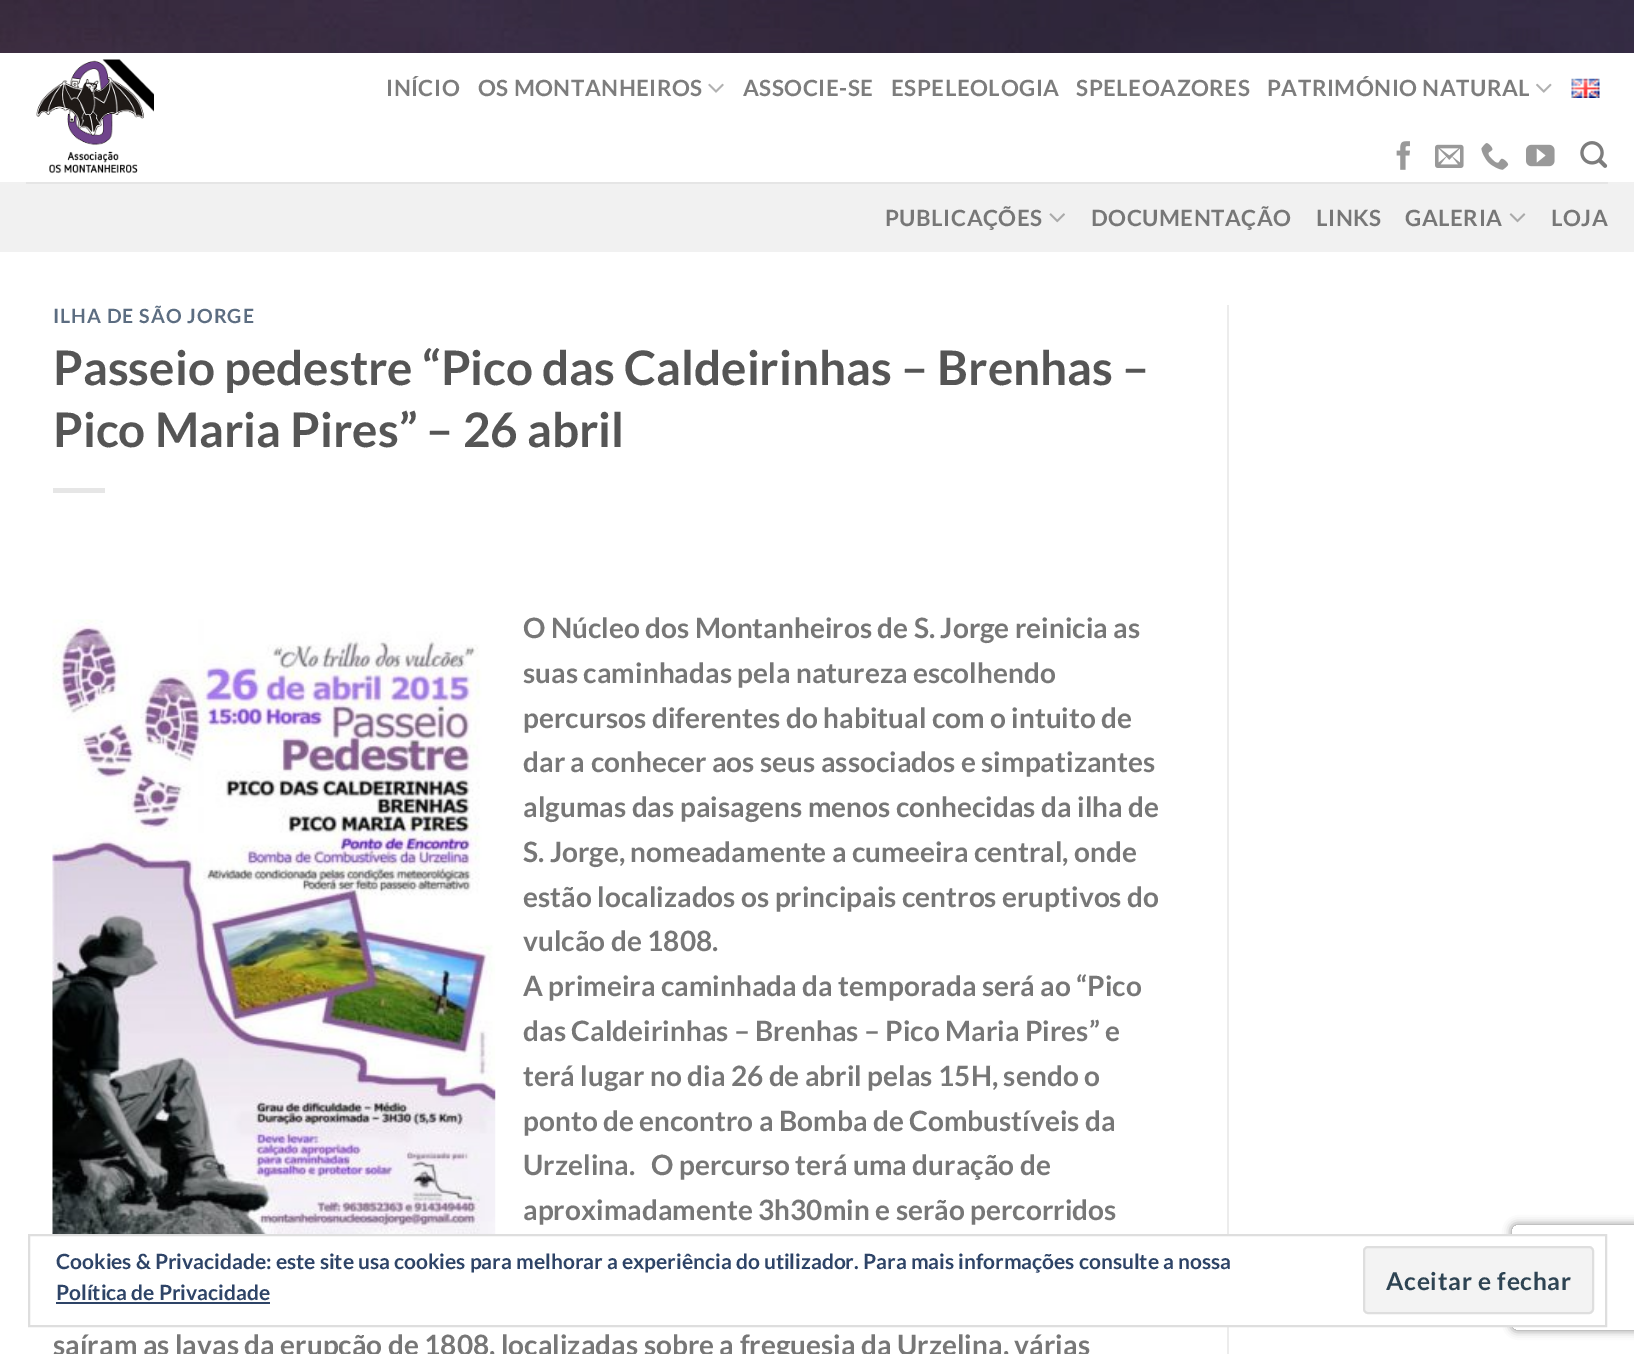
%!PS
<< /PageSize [1634 1354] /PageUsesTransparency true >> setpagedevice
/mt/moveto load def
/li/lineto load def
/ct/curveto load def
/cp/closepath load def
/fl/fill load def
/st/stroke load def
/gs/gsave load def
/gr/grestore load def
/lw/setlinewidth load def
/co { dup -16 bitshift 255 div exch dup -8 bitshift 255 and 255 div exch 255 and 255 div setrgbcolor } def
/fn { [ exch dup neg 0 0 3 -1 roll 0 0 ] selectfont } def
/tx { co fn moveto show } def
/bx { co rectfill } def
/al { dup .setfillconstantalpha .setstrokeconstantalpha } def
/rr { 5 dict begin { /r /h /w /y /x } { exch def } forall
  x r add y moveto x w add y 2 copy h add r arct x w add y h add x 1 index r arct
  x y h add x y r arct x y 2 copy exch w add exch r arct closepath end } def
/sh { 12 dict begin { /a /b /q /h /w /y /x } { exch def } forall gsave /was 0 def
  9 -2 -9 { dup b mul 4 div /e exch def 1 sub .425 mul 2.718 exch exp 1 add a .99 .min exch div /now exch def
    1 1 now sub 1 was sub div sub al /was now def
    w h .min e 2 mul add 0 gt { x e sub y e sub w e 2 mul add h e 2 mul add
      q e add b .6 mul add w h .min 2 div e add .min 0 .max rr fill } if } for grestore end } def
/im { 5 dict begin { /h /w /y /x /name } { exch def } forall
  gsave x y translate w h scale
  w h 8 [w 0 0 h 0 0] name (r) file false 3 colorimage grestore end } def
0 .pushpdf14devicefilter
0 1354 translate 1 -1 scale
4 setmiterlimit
0 0 1634 1354 16#FFFFFF bx
(media/1.raw) 0 0 1634 53 im
(media/2.raw) 36 59 118 115 im
(media/3.raw) 708 83 16 10 im
(media/4.raw) 1536 83 16 10 im
(media/5.raw) 1571 78 29 20 im
(media/6.raw) 1396 141 14 29 im
(media/7.raw) 1435 144 29 24 im
(media/8.raw) 1481 143 28 27 im
(media/9.raw) 1526 144 29 23 im
(media/10.raw) 1580 141 28 27 im
0 182 1634 70 16#F1F1F1 bx
26 182 1582 2 16#E5E5E5 bx
(media/11.raw) 1049 213 16 10 im
(media/12.raw) 1509 213 17 10 im
53 488 52 5 16#E6E6E6 bx
(media/13.raw) 52 619 444 615 im
1227 305 2 1049 16#ECECEC bx
gs
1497 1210 mt 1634 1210 li 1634 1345 li 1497 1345 li cp 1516 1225 mt 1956 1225 li 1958 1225 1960 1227 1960 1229 ct 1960 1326 li 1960 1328 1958 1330 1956 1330 ct 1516 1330 li 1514 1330 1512 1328 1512 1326 ct 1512 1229 li 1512 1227 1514 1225 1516 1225 ct cp eoclip newpath
16#808080 co
1512 1225 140 105 4 4.5 1 sh
gr
1227 1236 285 89 16#FFFFFF bx
16#DEDEDE co
2 lw
29 1235 1577 91 rectstroke
56 1302 214 2 16#2E4467 bx
16#F3F3F3 co
1364 1247 229 66 4 rr gs fl gr
16#DEDEDE co
st
/Lato-Bold 22.4 fn
16#7D7D7D co
386 96 mt .5 0 (INÍCIO) ashow
478 96 mt .5 0 (OS MONTANHEIROS) ashow
743 96 mt .5 0 (ASSOCIE-SE) ashow
891 96 mt .5 0 (ESPELEOLOGIA) ashow
1076 96 mt .5 0 (SPELEOAZORES) ashow
1267 96 mt .5 0 (PATRIMÓNIO NATURAL) ashow
16#777777 co
885 226 mt .5 0 (PUBLICAÇÕES) ashow
1091 226 mt .5 0 (DOCUMENTAÇÃO) ashow
1316 226 mt .5 0 (LINKS) ashow
1405 226 mt .5 0 (GALERIA) ashow
1551 226 mt .5 0 (LOJA) ashow
/Lato-Bold 19.6 fn
16#5C6D81 co
53 323 mt 1 0 (ILHA DE SÃO JORGE) ashow
(Passeio pedestre “Pico das Caldeirinhas – Brenhas –) 53 385 /Lato-Bold 47.6 16#555555 tx
(Pico Maria Pires” – 26 abril) 53 447 /Lato-Bold 47.6 16#555555 tx
(O Núcleo dos Montanheiros de S. Jorge reinicia as) 523 638 /Lato-Bold 28 16#777777 tx
(suas caminhadas pela natureza escolhendo) 523 683 /Lato-Bold 28 16#777777 tx
(percursos diferentes do habitual com o intuito de) 523 728 /Lato-Bold 28 16#777777 tx
(dar a conhecer aos seus associados e simpatizantes) 523 772 /Lato-Bold 28 16#777777 tx
(algumas das paisagens menos conhecidas da ilha de) 523 817 /Lato-Bold 28 16#777777 tx
(S. Jorge, nomeadamente a cumeeira central, onde) 523 862 /Lato-Bold 28 16#777777 tx
(estão localizados os principais centros eruptivos do) 523 907 /Lato-Bold 28 16#777777 tx
(vulcão de 1808.) 523 951 /Lato-Bold 28 16#777777 tx
(A primeira caminhada da temporada será ao “Pico) 523 996 /Lato-Bold 28 16#777777 tx
(das Caldeirinhas – Brenhas – Pico Maria Pires” e) 523 1041 /Lato-Bold 28 16#777777 tx
(terá lugar no dia 26 de abril pelas 15H, sendo o) 523 1086 /Lato-Bold 28 16#777777 tx
(ponto de encontro a Bomba de Combustíveis da) 523 1131 /Lato-Bold 28 16#777777 tx
(Urzelina.   O percurso terá uma duração de) 523 1175 /Lato-Bold 28 16#777777 tx
(aproximadamente 3h30min e serão percorridos) 523 1220 /Lato-Bold 28 16#777777 tx
(saíram as lavas da erupção de 1808, localizadas sobre a freguesia da Urzelina, várias) 53 1355 /Lato-Bold 28 16#777777 tx
(Cookies & Privacidade: este site usa cookies para melhorar a experiência do utilizador. Para mais informações consulte a nossa) 56 1269 /Lato-Bold 21 16#2E4467 tx
(Política de Privacidade) 56 1300 /Lato-Bold 21 16#2E4467 tx
/Lato-Bold 24.5 fn
16#2E4453 co
1386 1290 mt .75 0 (Aceitar e fechar) ashow
.poppdf14devicefilter showpage
